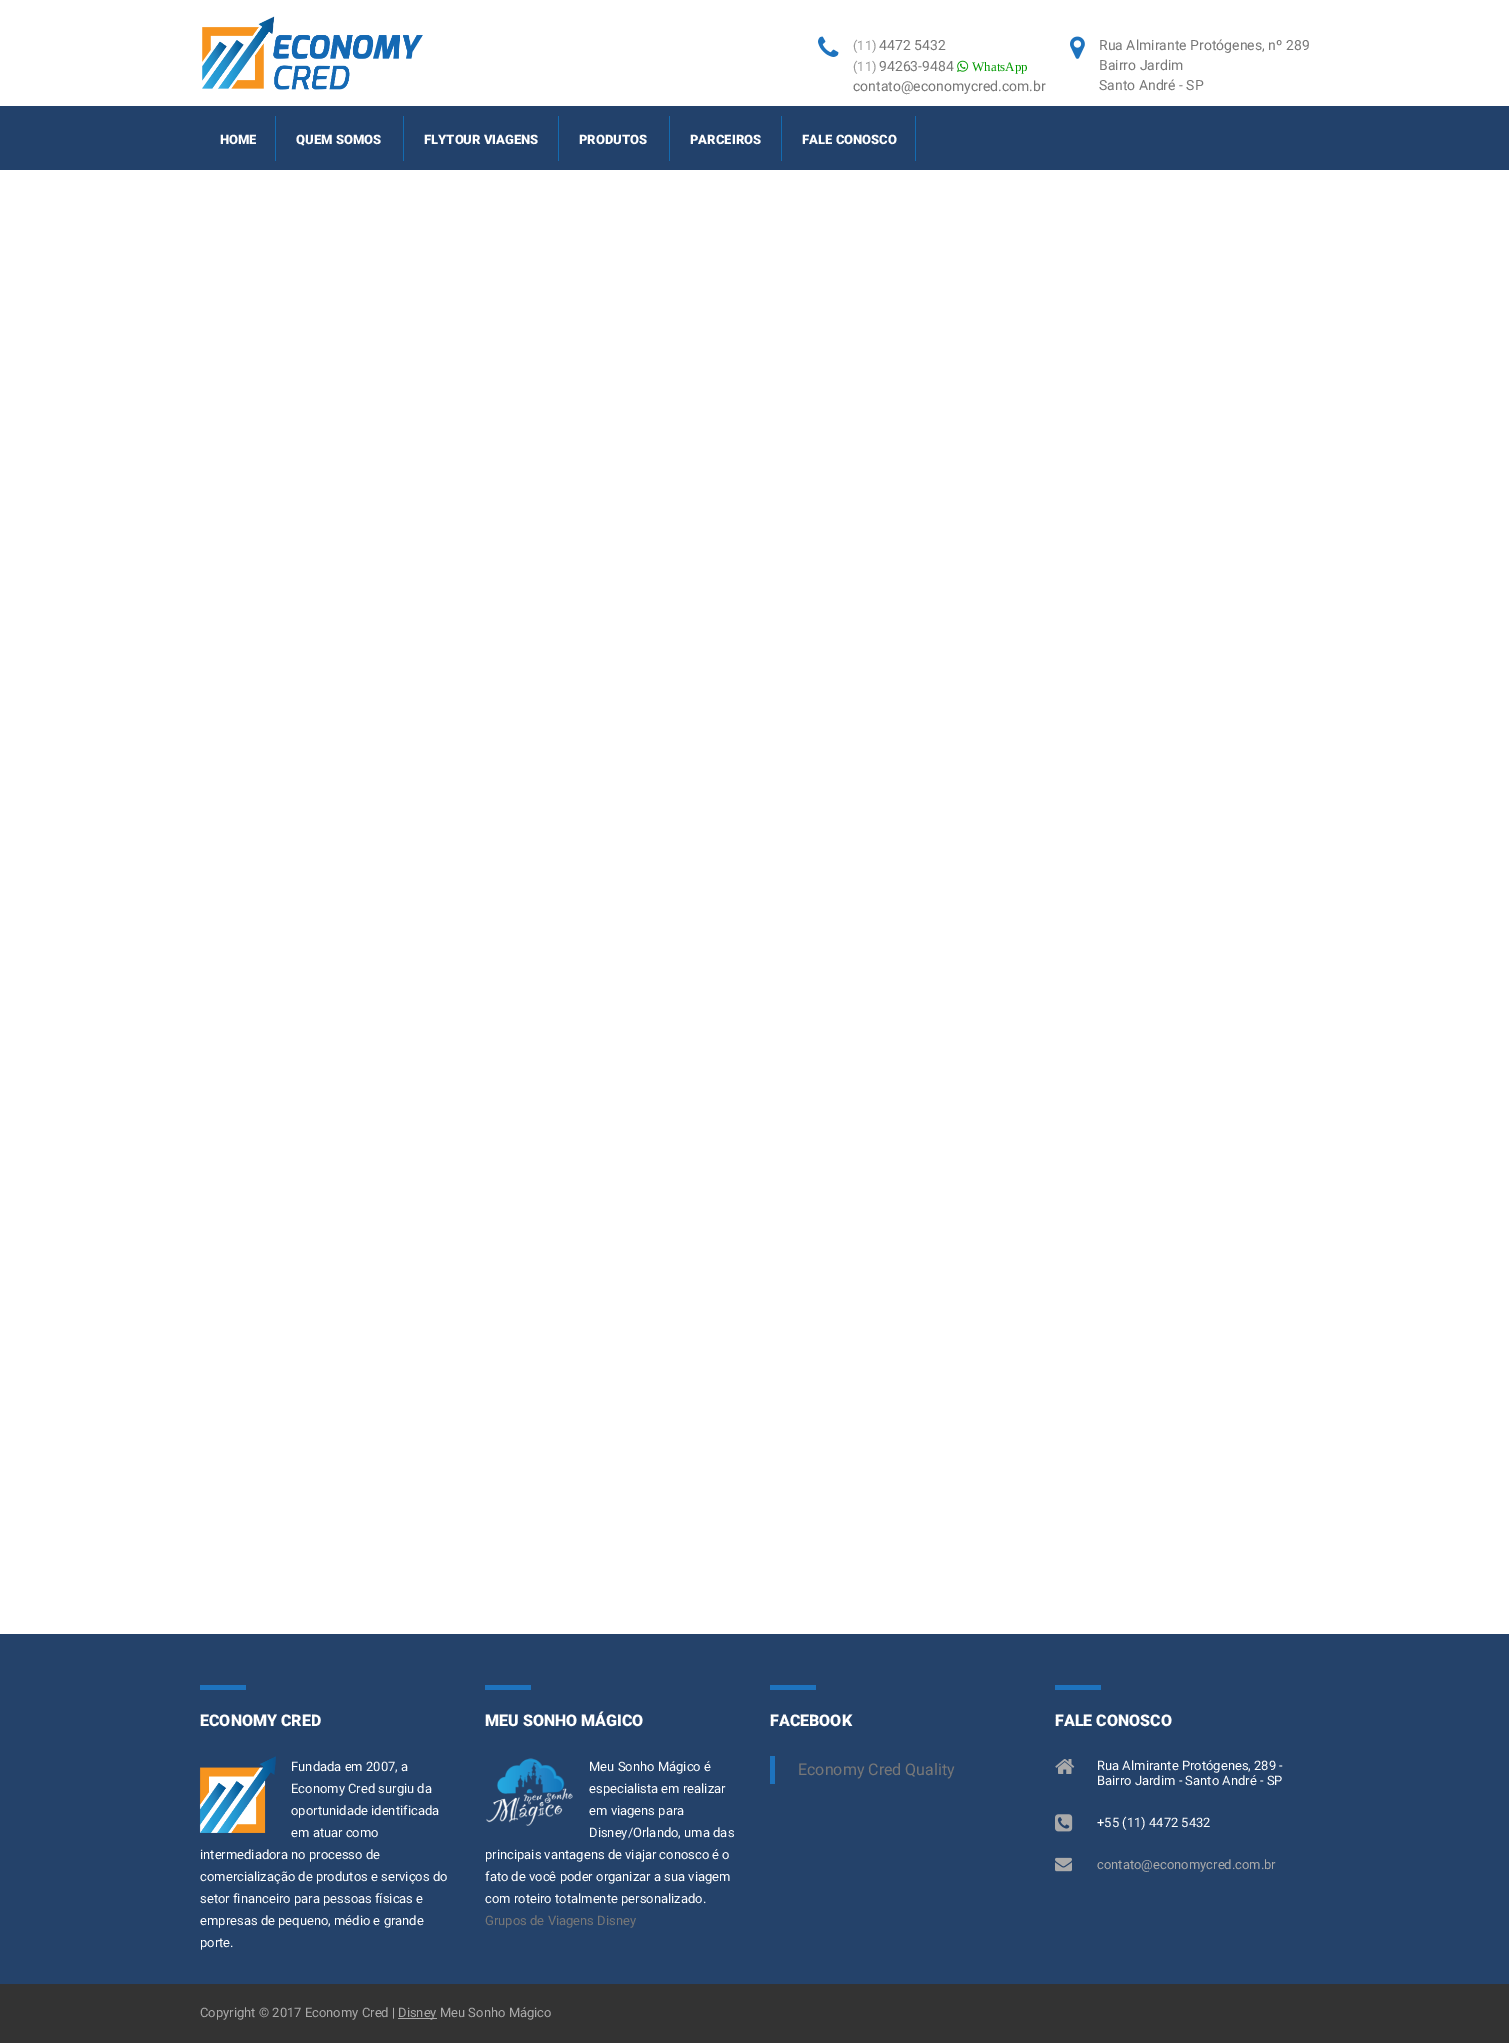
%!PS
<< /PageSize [1509 2043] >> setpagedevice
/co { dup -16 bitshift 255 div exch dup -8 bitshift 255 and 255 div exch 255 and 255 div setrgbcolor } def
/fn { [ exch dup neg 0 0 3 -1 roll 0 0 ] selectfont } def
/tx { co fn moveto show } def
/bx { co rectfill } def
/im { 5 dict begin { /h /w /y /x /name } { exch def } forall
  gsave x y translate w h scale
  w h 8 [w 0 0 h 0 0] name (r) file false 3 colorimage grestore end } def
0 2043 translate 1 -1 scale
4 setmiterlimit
0 0 1509 2043 16#FFFFFF bx
(media/1.raw) 202 16 221 74 im
(media/2.raw) 818 36 21 21 im
(media/3.raw) 957 60 12 12 im
(media/4.raw) 1070 36 15 23 im
0 106 1509 64 16#22416B bx
275 116 1 45 16#136BB1 bx
403 116 1 45 16#136BB1 bx
558 116 1 45 16#136BB1 bx
669 116 1 45 16#136BB1 bx
781 116 1 45 16#136BB1 bx
915 116 1 45 16#136BB1 bx
0 1634 1509 350 16#24426A bx
200 1685 46 5 16#1E73BE bx
(media/5.raw) 199 1756 77 77 im
485 1685 46 5 16#1E73BE bx
(media/6.raw) 486 1758 87 68 im
770 1685 46 5 16#1E73BE bx
770 1756 5 28 16#1E73BE bx
1055 1685 46 5 16#1E73BE bx
(media/7.raw) 1055 1759 20 15 im
(media/8.raw) 1055 1814 18 18 im
(media/9.raw) 1055 1857 17 15 im
0 1984 1509 59 16#333333 bx
398 2018 39 1 16#AAAAAA bx
(\(11\)) 853 50 /Roboto-Regular 13 16#999999 tx
(4472 5432) 879 50 /Roboto-Regular 14 16#777777 tx
(\(11\)) 853 71 /Roboto-Regular 13 16#999999 tx
(94263-9484) 879 71 /Roboto-Regular 14 16#777777 tx
(WhatsApp) 972 71 /LiberationSerif-Regular 13 16#009900 tx
(contato@economycred.com.br) 853 91 /Roboto-Regular 14 16#777777 tx
(Rua Almirante Protógenes, nº 289) 1099 50 /Roboto-Regular 14 16#777777 tx
(Bairro Jardim) 1099 70 /Roboto-Regular 14 16#777777 tx
(Santo André - SP) 1099 90 /Roboto-Regular 14 16#777777 tx
(HOME) 220 144 /Roboto-Black 13 16#FFFFFF tx
(QUEM SOMOS) 296 144 /Roboto-Black 13 16#FFFFFF tx
(FLYTOUR VIAGENS) 424 144 /Roboto-Black 13 16#FFFFFF tx
(PRODUTOS) 579 144 /Roboto-Black 13 16#FFFFFF tx
(PARCEIROS) 690 144 /Roboto-Black 13 16#FFFFFF tx
(FALE CONOSCO) 802 144 /Roboto-Black 13 16#FFFFFF tx
(ECONOMY CRED) 200 1726 /Roboto-Black 16 16#FFFFFF tx
(Fundada em 2007, a) 291 1771 /Roboto-Regular 13 16#FFFFFF tx
(Economy Cred surgiu da) 291 1793 /Roboto-Regular 13 16#FFFFFF tx
(oportunidade identificada) 291 1815 /Roboto-Regular 13 16#FFFFFF tx
(em atuar como) 291 1837 /Roboto-Regular 13 16#FFFFFF tx
(intermediadora no processo de) 200 1859 /Roboto-Regular 13 16#FFFFFF tx
(comercialização de produtos e serviços do) 200 1881 /Roboto-Regular 13 16#FFFFFF tx
(setor financeiro para pessoas físicas e) 200 1903 /Roboto-Regular 13 16#FFFFFF tx
(empresas de pequeno, médio e grande) 200 1925 /Roboto-Regular 13 16#FFFFFF tx
(porte.) 200 1947 /Roboto-Regular 13 16#FFFFFF tx
(MEU SONHO MÁGICO) 485 1726 /Roboto-Black 16 16#FFFFFF tx
(Meu Sonho Mágico é) 589 1771 /Roboto-Regular 13 16#FFFFFF tx
(especialista em realizar) 589 1793 /Roboto-Regular 13 16#FFFFFF tx
(em viagens para) 589 1815 /Roboto-Regular 13 16#FFFFFF tx
(Disney/Orlando, uma das) 589 1837 /Roboto-Regular 13 16#FFFFFF tx
(principais vantagens de viajar conosco é o) 485 1859 /Roboto-Regular 13 16#FFFFFF tx
(fato de você poder organizar a sua viagem) 485 1881 /Roboto-Regular 13 16#FFFFFF tx
(com roteiro totalmente personalizado.) 485 1903 /Roboto-Regular 13 16#FFFFFF tx
(Grupos de Viagens Disney) 485 1925 /Roboto-Regular 13 16#777777 tx
(FACEBOOK) 770 1726 /Roboto-Black 16 16#FFFFFF tx
(Economy Cred Quality) 798 1775 /Roboto-Regular 16 16#777777 tx
(FALE CONOSCO) 1055 1726 /Roboto-Black 16 16#FFFFFF tx
(Rua Almirante Protógenes, 289 -) 1097 1770 /Roboto-Regular 13 16#FFFFFF tx
(Bairro Jardim - Santo André - SP) 1097 1785 /Roboto-Regular 13 16#FFFFFF tx
(+55 \(11\) 4472 5432) 1097 1827 /Roboto-Regular 13 16#FFFFFF tx
(contato@economycred.com.br) 1097 1869 /Roboto-Regular 13 16#AAAAAA tx
(Copyright © 2017 Economy Cred |) 200 2017 /Roboto-Regular 13 16#AAAAAA tx
(Disney Meu Sonho Mágico) 398 2017 /Roboto-Regular 13 16#AAAAAA tx
showpage
